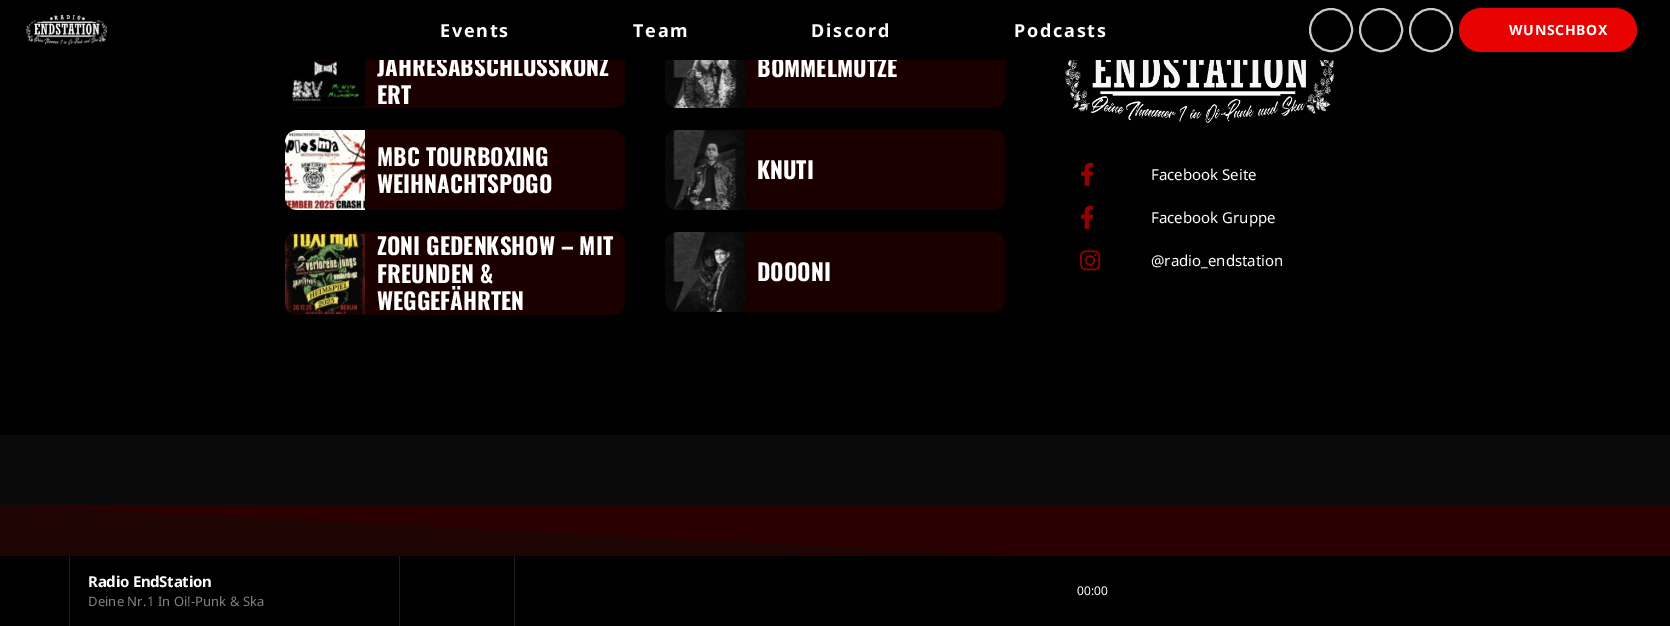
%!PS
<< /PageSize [1670 626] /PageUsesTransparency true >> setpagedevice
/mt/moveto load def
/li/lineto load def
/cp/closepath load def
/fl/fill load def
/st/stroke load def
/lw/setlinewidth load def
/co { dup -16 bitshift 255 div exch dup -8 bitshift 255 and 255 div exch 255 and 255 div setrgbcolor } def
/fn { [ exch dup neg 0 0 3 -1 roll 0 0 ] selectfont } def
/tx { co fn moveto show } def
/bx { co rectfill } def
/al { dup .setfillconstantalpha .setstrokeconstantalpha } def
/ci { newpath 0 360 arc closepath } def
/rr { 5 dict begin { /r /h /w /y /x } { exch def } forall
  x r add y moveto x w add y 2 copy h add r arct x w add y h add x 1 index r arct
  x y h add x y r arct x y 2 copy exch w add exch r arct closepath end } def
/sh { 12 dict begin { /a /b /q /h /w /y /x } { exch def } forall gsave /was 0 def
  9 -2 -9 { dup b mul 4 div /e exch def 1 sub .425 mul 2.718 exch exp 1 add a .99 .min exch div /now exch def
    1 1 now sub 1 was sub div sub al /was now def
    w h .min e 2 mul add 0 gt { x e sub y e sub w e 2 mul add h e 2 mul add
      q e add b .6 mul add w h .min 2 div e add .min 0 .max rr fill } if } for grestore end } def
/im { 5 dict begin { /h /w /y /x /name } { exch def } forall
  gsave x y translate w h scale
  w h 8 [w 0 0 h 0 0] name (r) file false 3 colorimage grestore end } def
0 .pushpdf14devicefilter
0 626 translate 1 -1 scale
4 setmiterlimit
0 0 1670 626 16#0A0A0A bx
0 505 1027 51 16#1B0505 bx
0 60 1670 375 16#010101 bx
16#1B0000 co
285 25 340 83 12 rr fl
(media/2.raw) 285 60 80 47 im
665 28 340 80 12 rr fl
(media/5.raw) 665 60 80 48 im
(media/8.raw) 1065 60 269 63 im
16#000000 co
0 20 1670 60 0 10 .06 sh
16#1B0000 co
285 130 340 80 12 rr fl
(media/3.raw) 285 130 80 80 im
285 232 340 83 12 rr fl
(media/4.raw) 285 234 80 80 im
665 130 340 80 12 rr fl
(media/6.raw) 665 130 80 80 im
665 232 340 80 12 rr fl
(media/7.raw) 665 232 80 80 im
(media/9.raw) 1081 162 13 24 im
(media/9.raw) 1081 205 13 24 im
(media/10.raw) 1080 250 21 21 im
16#2B0000 co
0 505 mt 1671 505 li 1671 588 li cp fl
0.25 al
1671 505 mt 0 505 li 0 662 li 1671 588 li cp fl
1 al
0 556 1670 70 16#000000 bx
399 556 1 70 16#1E1E1E bx
69 556 1 70 16#1E1E1E bx
514 556 1 70 16#1E1E1E bx
(JAHRESABSCHLUSSKONZ) 377 76 /Oswald-Bold 23 16#FFFFFF tx
(ERT) 377 104 /Oswald-Bold 23 16#FFFFFF tx
(MBC TOURBOXING) 377 166 /Oswald-Bold 23 16#FFFFFF tx
(WEIHNACHTSPOGO) 377 193 /Oswald-Bold 23 16#FFFFFF tx
(ZONI GEDENKSHOW – MIT) 377 255 /Oswald-Bold 23 16#FFFFFF tx
(FREUNDEN &) 377 283 /Oswald-Bold 23 16#FFFFFF tx
(WEGGEFÄHRTEN) 377 310 /Oswald-Bold 23 16#FFFFFF tx
(BOMMELMÜTZE) 757 77 /Oswald-Bold 23 16#FFFFFF tx
0 0 1670 60 16#000000 bx
16#E80202 co
1459 8 178 44 22 rr fl
/NotoSans-Bold 14 fn
16#FFFFFF co
1509 35 mt .75 0 (WUNSCHBOX) ashow
(media/1.raw) 26 15 82 31 im
16#C9C9C9 co
2 lw
1431 30 21 ci st
1381 30 21 ci st
1331 30 21 ci st
/NotoSans-Bold 18 fn
16#FFFFFF co
1014 37 mt 1.75 0 (Podcasts) ashow
811 37 mt 1.75 0 (Discord) ashow
633 37 mt 1.75 0 (Team) ashow
440 37 mt 1.75 0 (Events) ashow
(KNUTI) 757 179 /Oswald-Bold 23 16#FFFFFF tx
(DOOONI) 757 281 /Oswald-Bold 23 16#FFFFFF tx
(Facebook Seite) 1151 180 /NotoSans-Regular 15 16#FFFFFF tx
(Facebook Gruppe) 1151 223 /NotoSans-Regular 15 16#FFFFFF tx
(@radio_endstation) 1151 266 /NotoSans-Regular 15 16#FFFFFF tx
/NotoSans-Bold 15 fn
88 587 mt -.25 0 (Radio EndStation) ashow
/NotoSans-Regular 13 fn
16#808080 co
88 606 mt .1 0 (Deine Nr.1 In Oi!-Punk & Ska) ashow
(00:00) 1077 595 /NotoSans-Regular 12 16#FFFFFF tx
.poppdf14devicefilter showpage
